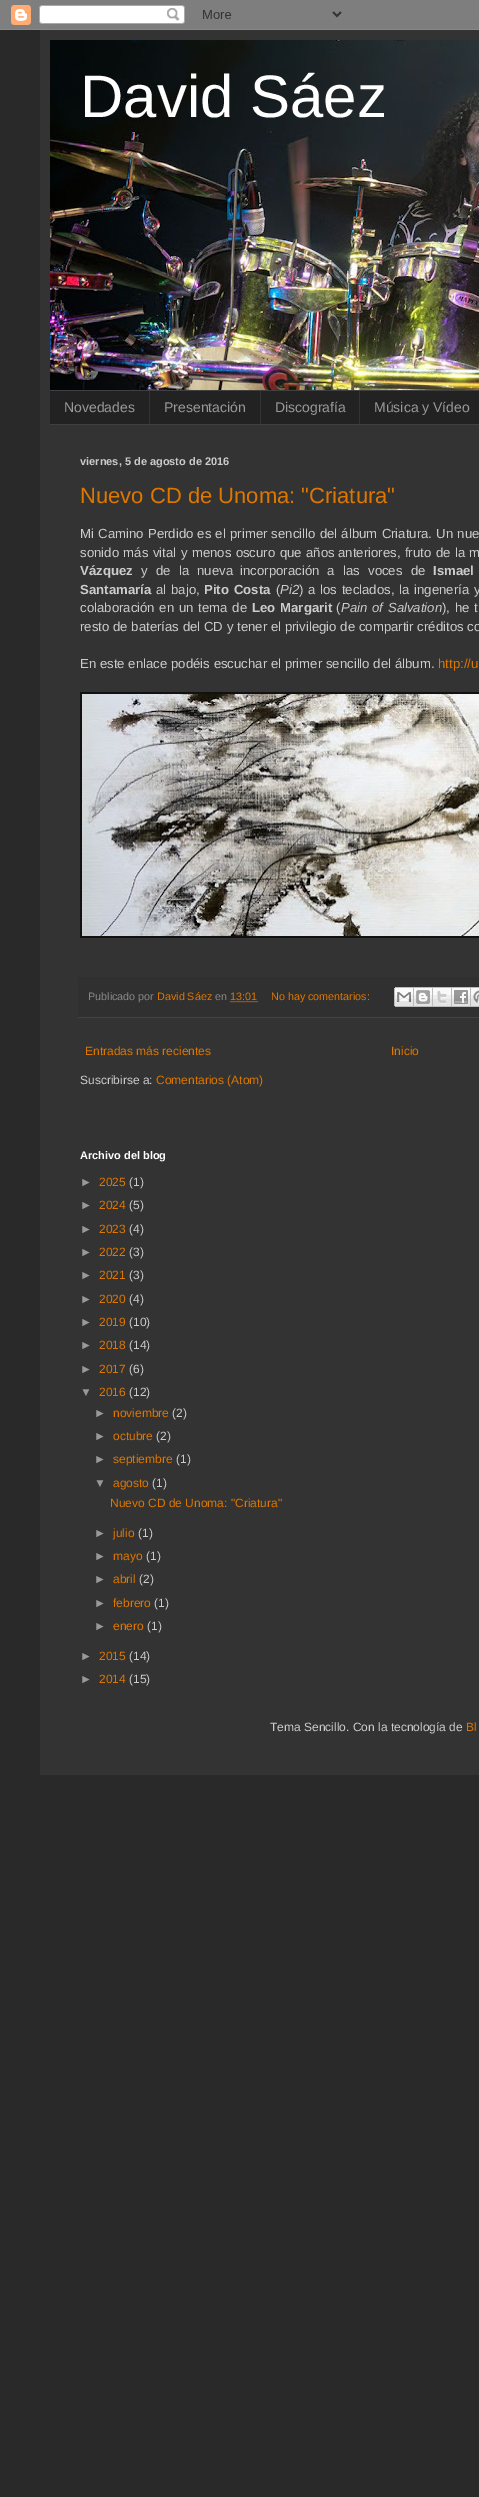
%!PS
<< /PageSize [479 2497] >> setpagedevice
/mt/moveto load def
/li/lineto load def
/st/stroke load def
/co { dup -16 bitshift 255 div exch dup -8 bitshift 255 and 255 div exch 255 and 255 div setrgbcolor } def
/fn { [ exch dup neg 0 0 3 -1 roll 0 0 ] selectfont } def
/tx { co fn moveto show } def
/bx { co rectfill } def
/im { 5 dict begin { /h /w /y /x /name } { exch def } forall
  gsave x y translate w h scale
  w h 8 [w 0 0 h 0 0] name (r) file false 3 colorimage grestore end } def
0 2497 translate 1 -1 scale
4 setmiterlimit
0 0 479 2497 16#292929 bx
(media/1.raw) 0 0 479 30 im
40 30 439 1745 16#333333 bx
(media/2.raw) 50 40 429 350 im
50 391 429 33 16#222222 bx
50 390 429 1 16#404040 bx
50 424 429 1 16#404040 bx
149 391 1 33 16#333333 bx
260 391 1 33 16#333333 bx
359 391 1 33 16#333333 bx
80 692 399 246 16#111111 bx
(media/3.raw) 82 694 397 242 im
78 977 401 40 16#303030 bx
78 1017 401 1 16#444444 bx
16#DD7700 co
[1 1] 0 setdash
230.5 1001.5 mt 257.5 1001.5 li st
(media/4.raw) 394 987 20 20 im
(media/5.raw) 414 987 19 20 im
(media/6.raw) 433 987 19 20 im
(media/7.raw) 452 987 19 20 im
(media/8.raw) 471 987 8 20 im
(David Sáez) 80 117 /LiberationSans-Regular 60 16#FFFFFF tx
(Novedades) 64 412 /LiberationSans-Regular 14 16#999999 tx
(Presentación) 164 412 /LiberationSans-Regular 14 16#999999 tx
(Discografía) 275 412 /LiberationSans-Regular 14 16#999999 tx
(Música y Vídeo) 374 412 /LiberationSans-Regular 14 16#999999 tx
(viernes, 5 de agosto de 2016) 80 465 /LiberationSans-Bold 11 16#CCCCCC tx
(Nuevo CD de Unoma: "Criatura") 80 503 /LiberationSans-Regular 22 16#DD7700 tx
/LiberationSans-Regular 13.2 fn
16#CCCCCC co
80 538 mt .5 0 32 (Mi Camino Perdido es el primer sencillo del álbum Criatura. Un nue) widthshow
80 557 mt .75 0 32 (sonido más vital y menos oscuro que años) widthshow
338 557 mt .75 0 32 (anteriores, fruto de la) widthshow
469 557 mt 1 0 32 (m) widthshow
(Vázquez) 80 575 /LiberationSans-Bold 13.2 16#CCCCCC tx
/LiberationSans-Regular 13.2 fn
141 575 mt 4.5 0 32 (y de la nueva) widthshow
240 575 mt 4.5 0 32 (incorporación a las voces de) widthshow
/LiberationSans-Bold 13.2 fn
433 575 mt 4.5 0 32 (Ismael) widthshow
(Santamaría) 80 594 /LiberationSans-Bold 13.2 16#CCCCCC tx
/LiberationSans-Regular 13.2 fn
156 594 mt 1 0 32 (al bajo,) widthshow
/LiberationSans-Bold 13.2 fn
204 594 mt 1 0 32 (Pito Costa) widthshow
(\() 276 594 /LiberationSans-Regular 13.2 16#CCCCCC tx
(Pi2) 280 594 /LiberationSans-Italic 13.2 16#CCCCCC tx
/LiberationSans-Regular 13.2 fn
299 594 mt 1 0 32 (\) a los teclados, la ingenería y) widthshow
80 612 mt 1 0 32 (colaboración en un tema de) widthshow
/LiberationSans-Bold 13.2 fn
252 612 mt 1 0 32 (Leo Margarit) widthshow
(\() 336 612 /LiberationSans-Regular 13.2 16#CCCCCC tx
/LiberationSans-Italic 13.2 fn
341 612 mt 1 0 32 (Pain of Salvation) widthshow
/LiberationSans-Regular 13.2 fn
442 612 mt 1 0 32 (\), he t) widthshow
(resto de baterías del CD y tener el privilegio de compartir créditos co) 80 631 /LiberationSans-Regular 13.2 16#CCCCCC tx
(En este enlace podéis escuchar el primer sencillo del álbum.) 80 668 /LiberationSans-Regular 13.2 16#CCCCCC tx
(http://u) 438 668 /LiberationSans-Regular 13.2 16#DD7700 tx
(Publicado por) 88 1000 /LiberationSans-Regular 10.75 16#888888 tx
(David Sáez) 157 1000 /LiberationSans-Regular 10.75 16#DD7700 tx
(en) 215 1000 /LiberationSans-Regular 10.75 16#888888 tx
(13:01) 230 1000 /LiberationSans-Regular 10.75 16#DD7700 tx
(No hay comentarios:) 271 1000 /LiberationSans-Regular 10.75 16#DD7700 tx
(Entradas más recientes) 85 1055 /LiberationSans-Regular 12 16#DD7700 tx
(Inicio) 391 1055 /LiberationSans-Regular 12 16#DD7700 tx
(Suscribirse a:) 80 1084 /LiberationSans-Regular 12 16#CCCCCC tx
(Comentarios \(Atom\)) 156 1084 /LiberationSans-Regular 12 16#DD7700 tx
(Archivo del blog) 80 1159 /LiberationSans-Bold 11 16#FFFFFF tx
(►) 80 1186 /LiberationSans-Regular 12 16#999999 tx
(2025) 99 1186 /LiberationSans-Regular 12 16#DD7700 tx
(\(1\)) 129 1186 /LiberationSans-Regular 12 16#CCCCCC tx
(►) 80 1209 /LiberationSans-Regular 12 16#999999 tx
(2024) 99 1209 /LiberationSans-Regular 12 16#DD7700 tx
(\(5\)) 129 1209 /LiberationSans-Regular 12 16#CCCCCC tx
(►) 80 1233 /LiberationSans-Regular 12 16#999999 tx
(2023) 99 1233 /LiberationSans-Regular 12 16#DD7700 tx
(\(4\)) 129 1233 /LiberationSans-Regular 12 16#CCCCCC tx
(►) 80 1256 /LiberationSans-Regular 12 16#999999 tx
(2022) 99 1256 /LiberationSans-Regular 12 16#DD7700 tx
(\(3\)) 129 1256 /LiberationSans-Regular 12 16#CCCCCC tx
(►) 80 1279 /LiberationSans-Regular 12 16#999999 tx
(2021) 99 1279 /LiberationSans-Regular 12 16#DD7700 tx
(\(3\)) 129 1279 /LiberationSans-Regular 12 16#CCCCCC tx
(►) 80 1303 /LiberationSans-Regular 12 16#999999 tx
(2020) 99 1303 /LiberationSans-Regular 12 16#DD7700 tx
(\(4\)) 129 1303 /LiberationSans-Regular 12 16#CCCCCC tx
(►) 80 1326 /LiberationSans-Regular 12 16#999999 tx
(2019) 99 1326 /LiberationSans-Regular 12 16#DD7700 tx
(\(10\)) 129 1326 /LiberationSans-Regular 12 16#CCCCCC tx
(►) 80 1349 /LiberationSans-Regular 12 16#999999 tx
(2018) 99 1349 /LiberationSans-Regular 12 16#DD7700 tx
(\(14\)) 129 1349 /LiberationSans-Regular 12 16#CCCCCC tx
(►) 80 1373 /LiberationSans-Regular 12 16#999999 tx
(2017) 99 1373 /LiberationSans-Regular 12 16#DD7700 tx
(\(6\)) 129 1373 /LiberationSans-Regular 12 16#CCCCCC tx
(▼) 80 1396 /LiberationSans-Regular 12 16#999999 tx
(2016) 99 1396 /LiberationSans-Regular 12 16#DD7700 tx
(\(12\)) 129 1396 /LiberationSans-Regular 12 16#CCCCCC tx
(►) 94 1417 /LiberationSans-Regular 12 16#999999 tx
(noviembre) 113 1417 /LiberationSans-Regular 12 16#DD7700 tx
(\(2\)) 172 1417 /LiberationSans-Regular 12 16#CCCCCC tx
(►) 94 1440 /LiberationSans-Regular 12 16#999999 tx
(octubre) 113 1440 /LiberationSans-Regular 12 16#DD7700 tx
(\(2\)) 156 1440 /LiberationSans-Regular 12 16#CCCCCC tx
(►) 94 1463 /LiberationSans-Regular 12 16#999999 tx
(septiembre) 113 1463 /LiberationSans-Regular 12 16#DD7700 tx
(\(1\)) 176 1463 /LiberationSans-Regular 12 16#CCCCCC tx
(▼) 94 1487 /LiberationSans-Regular 12 16#999999 tx
(agosto) 113 1487 /LiberationSans-Regular 12 16#DD7700 tx
(\(1\)) 152 1487 /LiberationSans-Regular 12 16#CCCCCC tx
(Nuevo CD de Unoma: "Criatura") 110 1507 /LiberationSans-Regular 12 16#DD7700 tx
(►) 94 1537 /LiberationSans-Regular 12 16#999999 tx
(julio) 113 1537 /LiberationSans-Regular 12 16#DD7700 tx
(\(1\)) 138 1537 /LiberationSans-Regular 12 16#CCCCCC tx
(►) 94 1560 /LiberationSans-Regular 12 16#999999 tx
(mayo) 113 1560 /LiberationSans-Regular 12 16#DD7700 tx
(\(1\)) 146 1560 /LiberationSans-Regular 12 16#CCCCCC tx
(►) 94 1583 /LiberationSans-Regular 12 16#999999 tx
(abril) 113 1583 /LiberationSans-Regular 12 16#DD7700 tx
(\(2\)) 139 1583 /LiberationSans-Regular 12 16#CCCCCC tx
(►) 94 1607 /LiberationSans-Regular 12 16#999999 tx
(febrero) 113 1607 /LiberationSans-Regular 12 16#DD7700 tx
(\(1\)) 154 1607 /LiberationSans-Regular 12 16#CCCCCC tx
(►) 94 1630 /LiberationSans-Regular 12 16#999999 tx
(enero) 113 1630 /LiberationSans-Regular 12 16#DD7700 tx
(\(1\)) 147 1630 /LiberationSans-Regular 12 16#CCCCCC tx
(►) 80 1660 /LiberationSans-Regular 12 16#999999 tx
(2015) 99 1660 /LiberationSans-Regular 12 16#DD7700 tx
(\(14\)) 129 1660 /LiberationSans-Regular 12 16#CCCCCC tx
(►) 80 1683 /LiberationSans-Regular 12 16#999999 tx
(2014) 99 1683 /LiberationSans-Regular 12 16#DD7700 tx
(\(15\)) 129 1683 /LiberationSans-Regular 12 16#CCCCCC tx
(Tema Sencillo. Con la tecnología de) 270 1731 /LiberationSans-Regular 12 16#CCCCCC tx
(Bl) 466 1731 /LiberationSans-Regular 12 16#DD7700 tx
showpage
